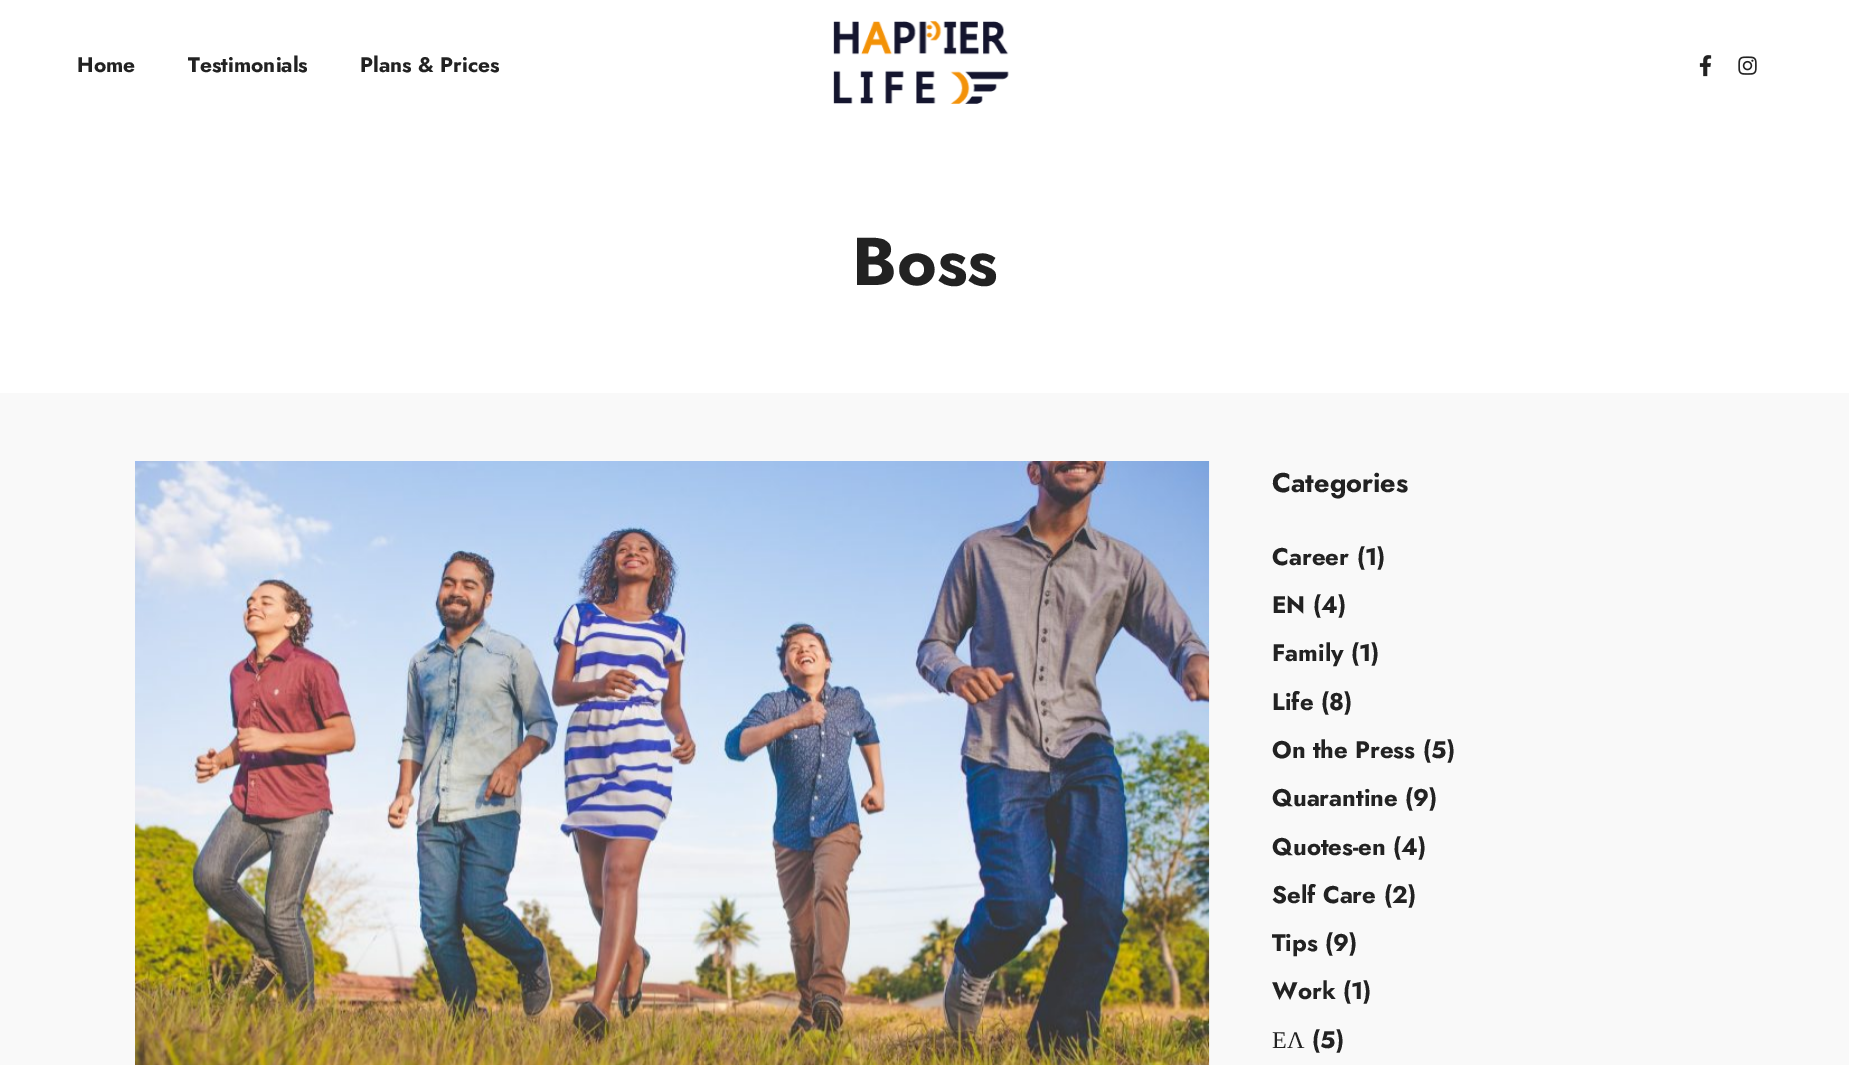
%!PS
<< /PageSize [1849 1065] >> setpagedevice
/co { dup -16 bitshift 255 div exch dup -8 bitshift 255 and 255 div exch 255 and 255 div setrgbcolor } def
/fn { [ exch dup neg 0 0 3 -1 roll 0 0 ] selectfont } def
/tx { co fn moveto show } def
/bx { co rectfill } def
/im { 5 dict begin { /h /w /y /x /name } { exch def } forall
  gsave x y translate w h scale
  w h 8 [w 0 0 h 0 0] name (r) file false 3 colorimage grestore end } def
0 1065 translate 1 -1 scale
4 setmiterlimit
0 0 1849 1065 16#F9F9F9 bx
0 0 1849 393 16#FFFFFF bx
(media/1.raw) 833 21 176 83 im
(media/2.raw) 1699 55 13 22 im
(media/3.raw) 1738 56 19 19 im
(media/4.raw) 135 461 1075 604 im
(Home) 77 72 /Jost-Bold 21 16#222222 tx
(Testimonials) 188 72 /Jost-Bold 21 16#222222 tx
(Plans & Prices) 360 72 /Jost-Bold 21 16#222222 tx
(Boss) 852 285 /Jost-Bold 67.5 16#222222 tx
(Categories) 1272 492 /Jost-Bold 27 16#222222 tx
(Career) 1272 565 /Jost-Bold 24 16#222222 tx
(\(1\)) 1357 565 /Jost-Bold 24 16#222222 tx
(EN) 1272 613 /Jost-Bold 24 16#222222 tx
(\(4\)) 1313 613 /Jost-Bold 24 16#222222 tx
(Family) 1272 661 /Jost-Bold 24 16#222222 tx
(\(1\)) 1351 661 /Jost-Bold 24 16#222222 tx
(Life) 1272 710 /Jost-Bold 24 16#222222 tx
(\(8\)) 1321 710 /Jost-Bold 24 16#222222 tx
(On the Press) 1272 758 /Jost-Bold 24 16#222222 tx
(\(5\)) 1423 758 /Jost-Bold 24 16#222222 tx
(Quarantine) 1272 806 /Jost-Bold 24 16#222222 tx
(\(9\)) 1405 806 /Jost-Bold 24 16#222222 tx
(Quotes-en) 1272 855 /Jost-Bold 24 16#222222 tx
(\(4\)) 1393 855 /Jost-Bold 24 16#222222 tx
(Self Care) 1272 903 /Jost-Bold 24 16#222222 tx
(\(2\)) 1384 903 /Jost-Bold 24 16#222222 tx
(Tips) 1272 951 /Jost-Bold 24 16#222222 tx
(\(9\)) 1325 951 /Jost-Bold 24 16#222222 tx
(Work) 1272 999 /Jost-Bold 24 16#222222 tx
(\(1\)) 1343 999 /Jost-Bold 24 16#222222 tx
(ΕΛ) 1272 1048 /LiberationSerif-Regular 24 16#222222 tx
(\(5\)) 1312 1048 /Jost-Bold 24 16#222222 tx
showpage
